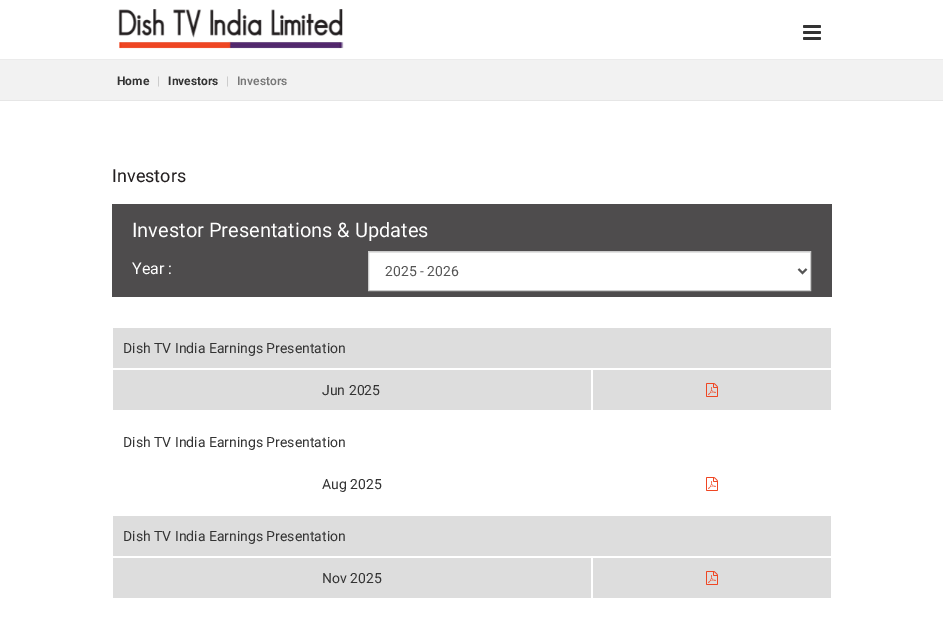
%!PS
<< /PageSize [943 622] >> setpagedevice
/mt/moveto load def
/li/lineto load def
/st/stroke load def
/lw/setlinewidth load def
/co { dup -16 bitshift 255 div exch dup -8 bitshift 255 and 255 div exch 255 and 255 div setrgbcolor } def
/fn { [ exch dup neg 0 0 3 -1 roll 0 0 ] selectfont } def
/tx { co fn moveto show } def
/bx { co rectfill } def
/im { 5 dict begin { /h /w /y /x /name } { exch def } forall
  gsave x y translate w h scale
  w h 8 [w 0 0 h 0 0] name (r) file false 3 colorimage grestore end } def
0 622 translate 1 -1 scale
4 setmiterlimit
0 0 943 622 16#FFFFFF bx
0 59 943 1 16#EBEBEB bx
(media/1.raw) 118 9 226 40 im
(media/2.raw) 803 25 18 15 im
0 60 943 40 16#F2F2F2 bx
0 100 943 1 16#E6E6E6 bx
112 204 720 93 16#4E4C4D bx
369 253 441 37 16#FFFFFF bx
369 252 441 1 16#ECECEC bx
16#CCCCCC co
368.5 251.5 442 39 rectstroke
16#555555 co
2 lw
798.5 269 mt 802.5 273 li 806.5 269 li st
113 328 718 40 16#DDDDDD bx
113 370 478 40 16#DDDDDD bx
593 370 238 40 16#DDDDDD bx
(media/3.raw) 706 383 12 14 im
(media/4.raw) 706 477 12 14 im
113 516 718 40 16#DDDDDD bx
113 558 478 40 16#DDDDDD bx
593 558 238 40 16#DDDDDD bx
(media/3.raw) 706 571 12 14 im
(Home) 117 85 /Roboto-Bold 12 16#333333 tx
(|) 157 85 /Roboto-Regular 12 16#CCCCCC tx
(Investors) 168 85 /Roboto-Bold 12 16#333333 tx
(|) 226 85 /Roboto-SemiBold 12 16#CCCCCC tx
(Investors) 237 85 /Roboto-SemiBold 12 16#777777 tx
(Investors) 112 182 /Roboto-Regular 18 16#231F20 tx
(Investor Presentations & Updates) 132 237 /Roboto-Regular 20 16#FFFFFF tx
(Year :) 132 274 /Roboto-Regular 16 16#FFFFFF tx
(2025 - 2026) 385 276 /Roboto-Regular 14 16#555555 tx
(Dish TV India Earnings Presentation) 123 353 /Roboto-Regular 14 16#333333 tx
(Jun 2025) 322 395 /Roboto-Regular 14 16#333333 tx
(Dish TV India Earnings Presentation) 123 447 /Roboto-Regular 14 16#333333 tx
(Aug 2025) 322 489 /Roboto-Regular 14 16#333333 tx
(Dish TV India Earnings Presentation) 123 541 /Roboto-Regular 14 16#333333 tx
(Nov 2025) 322 583 /Roboto-Regular 14 16#333333 tx
showpage
